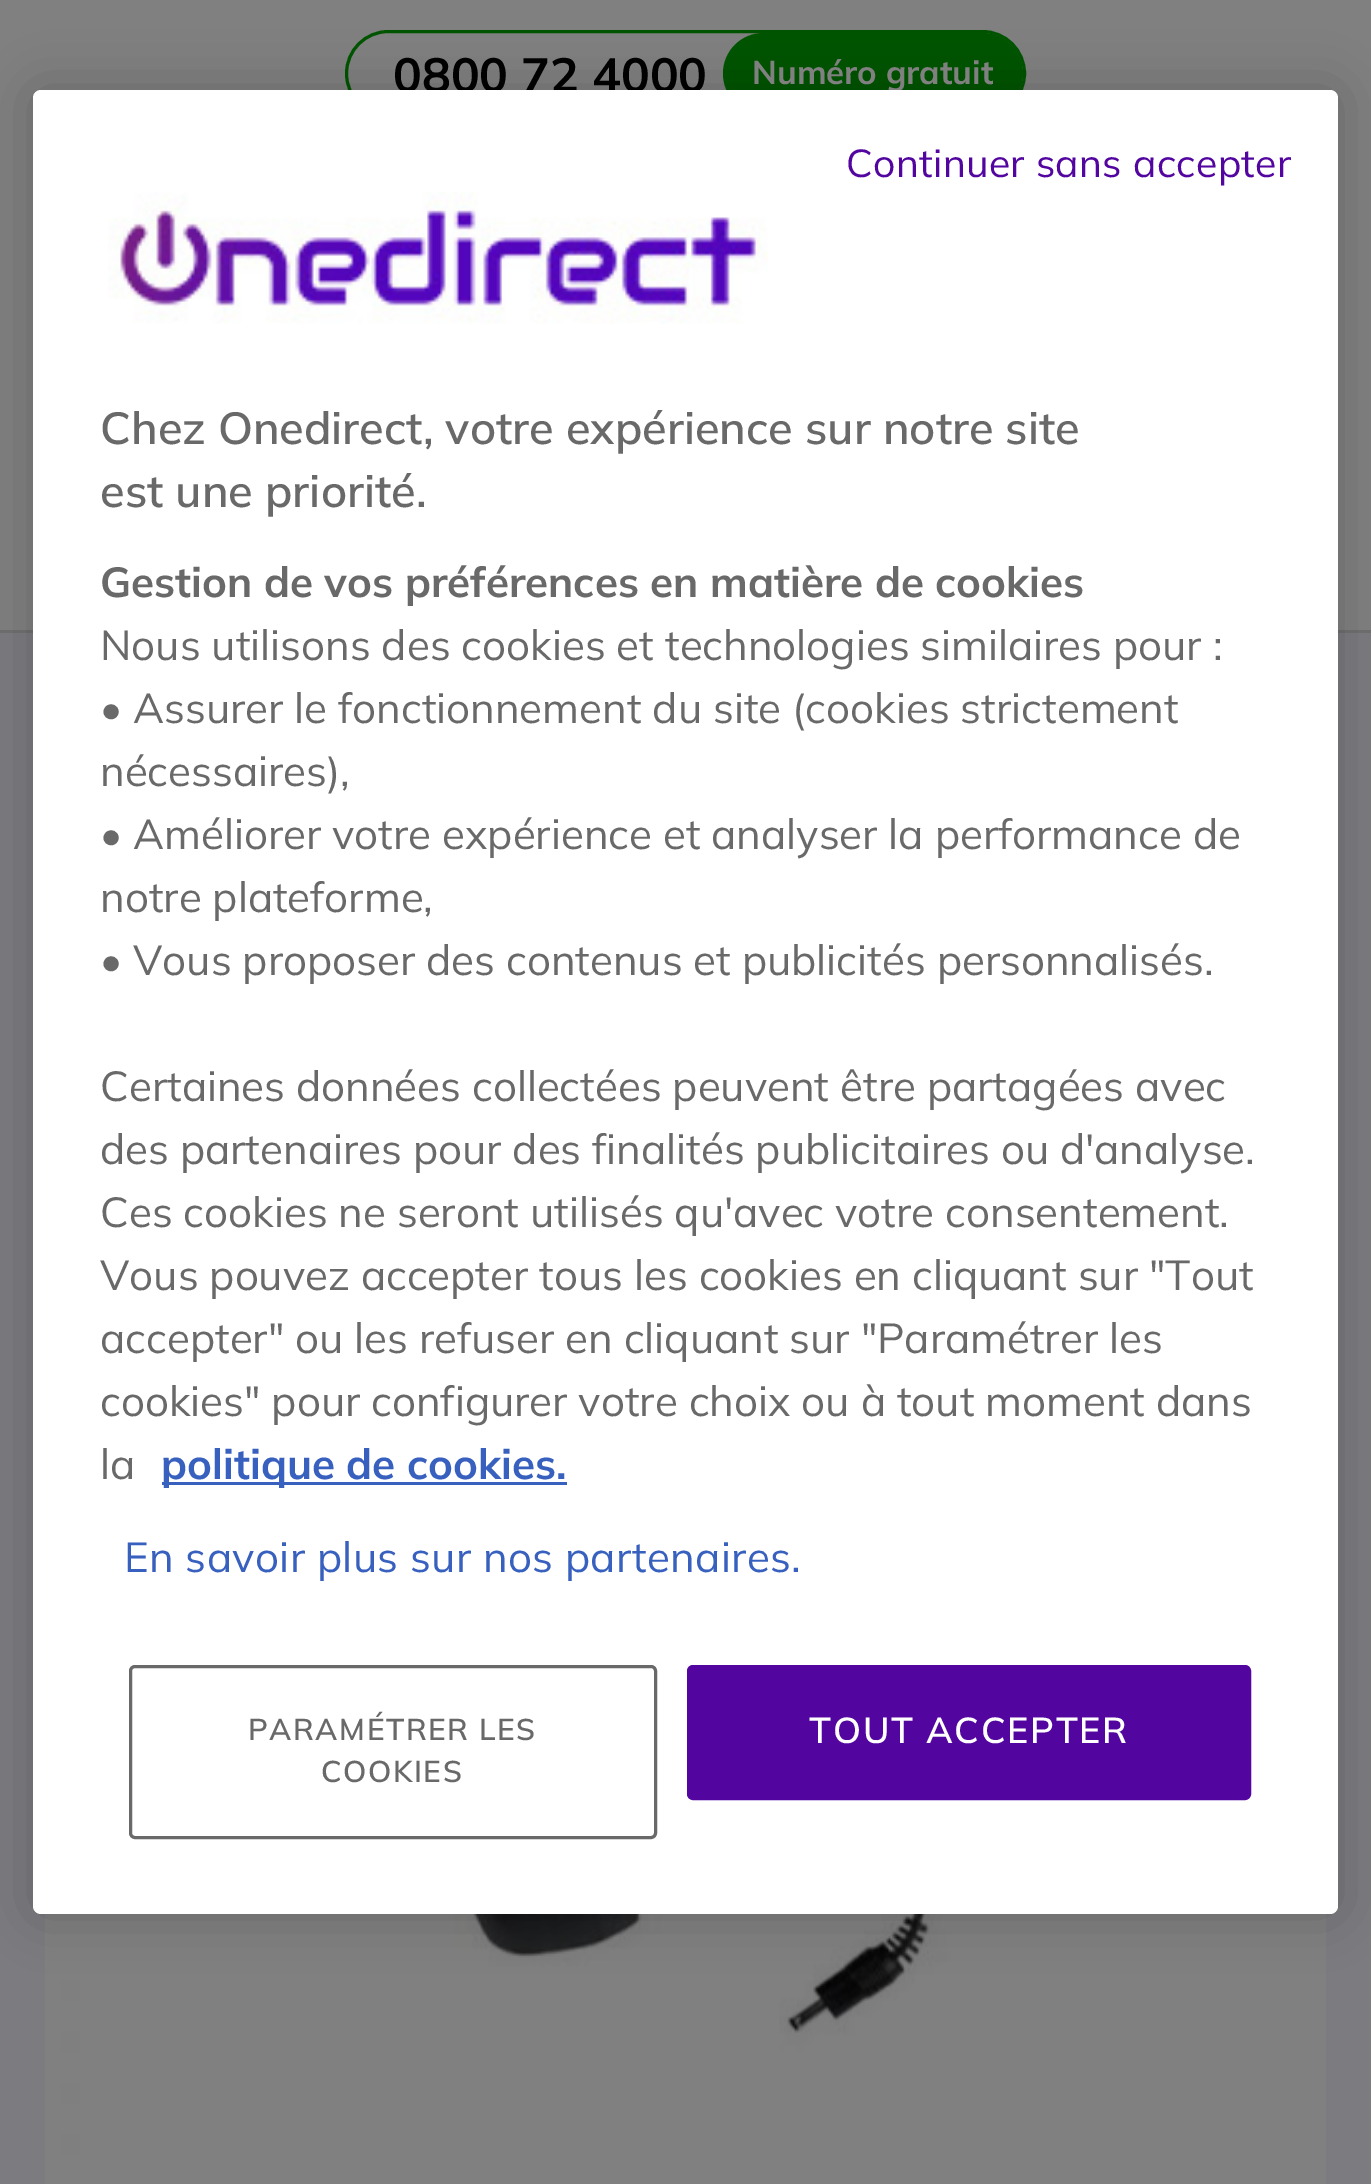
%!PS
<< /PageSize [1371 2184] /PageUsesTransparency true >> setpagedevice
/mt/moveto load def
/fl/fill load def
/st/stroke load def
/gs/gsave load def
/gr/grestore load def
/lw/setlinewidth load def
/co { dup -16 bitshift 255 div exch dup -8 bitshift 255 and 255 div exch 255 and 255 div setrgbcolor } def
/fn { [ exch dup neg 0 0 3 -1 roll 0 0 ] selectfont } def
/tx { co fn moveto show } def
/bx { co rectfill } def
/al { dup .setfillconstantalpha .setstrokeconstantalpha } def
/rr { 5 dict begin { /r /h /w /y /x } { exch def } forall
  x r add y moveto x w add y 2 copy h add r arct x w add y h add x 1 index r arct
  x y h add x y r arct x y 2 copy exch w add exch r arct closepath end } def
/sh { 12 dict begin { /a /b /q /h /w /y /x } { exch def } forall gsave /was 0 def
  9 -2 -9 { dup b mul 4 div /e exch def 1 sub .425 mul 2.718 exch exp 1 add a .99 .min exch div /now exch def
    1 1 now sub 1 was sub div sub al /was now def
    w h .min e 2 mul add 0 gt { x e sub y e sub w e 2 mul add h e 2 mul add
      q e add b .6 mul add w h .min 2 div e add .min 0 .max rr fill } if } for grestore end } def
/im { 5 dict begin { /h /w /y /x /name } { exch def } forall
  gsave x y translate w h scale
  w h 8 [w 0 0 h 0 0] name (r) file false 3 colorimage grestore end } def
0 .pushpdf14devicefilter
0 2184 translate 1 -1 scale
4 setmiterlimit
0 0 1371 2184 16#7C7C80 bx
0 0 1371 630 16#808080 bx
0 630 1371 3 16#707070 bx
16#005500 co
3 lw
346.5 31.5 678 84 42 rr st
723 33 300 81 40.5 rr fl
(media/1.raw) 45 1914 1281 270 im
16#000000 co
33 90 1305 1824 8 27 .2 sh
(0800 72 4000) 393 92 /Mulish-Bold 48 16#010101 tx
(Numéro gratuit) 752 84 /Mulish-Bold 33 16#808080 tx
16#FFFFFF co
33 90 1305 1824 8 rr fl
/Mulish-Regular 39 fn
16#5305A0 co
846 177 mt .4 0 (Continuer sans accepter) ashow
(media/2.raw) 108 192 661 132 im
(Chez Onedirect, votre expérience sur notre site) 100 444 /Mulish-SemiBold 45 16#696969 tx
(est une priorité.) 100 507 /Mulish-SemiBold 45 16#696969 tx
(Gestion de vos préférences en matière de cookies) 100 597 /Mulish-Bold 42 16#696969 tx
(Nous utilisons des cookies et technologies similaires pour :) 100 660 /Mulish-Regular 42 16#696969 tx
(• Assurer le fonctionnement du site \(cookies strictement) 100 723 /Mulish-Regular 42 16#696969 tx
(nécessaires\),) 100 786 /Mulish-Regular 42 16#696969 tx
(• Améliorer votre expérience et analyser la performance de) 100 849 /Mulish-Regular 42 16#696969 tx
(notre plateforme,) 100 912 /Mulish-Regular 42 16#696969 tx
(• Vous proposer des contenus et publicités personnalisés.) 100 975 /Mulish-Regular 42 16#696969 tx
(Certaines données collectées peuvent être partagées avec) 100 1101 /Mulish-Regular 42 16#696969 tx
(des partenaires pour des finalités publicitaires ou d'analyse.) 100 1164 /Mulish-Regular 42 16#696969 tx
(Ces cookies ne seront utilisés qu'avec votre consentement.) 100 1227 /Mulish-Regular 42 16#696969 tx
(Vous pouvez accepter tous les cookies en cliquant sur "Tout) 100 1290 /Mulish-Regular 42 16#696969 tx
(accepter" ou les refuser en cliquant sur "Paramétrer les) 100 1353 /Mulish-Regular 42 16#696969 tx
(cookies" pour configurer votre choix ou à tout moment dans) 100 1416 /Mulish-Regular 42 16#696969 tx
(la) 100 1479 /Mulish-Regular 42 16#696969 tx
162 1482 405 3 16#3860BE bx
(politique de cookies.) 161 1479 /Mulish-Bold 42 16#3860BE tx
/Mulish-Regular 42 fn
124 1572 mt .4 0 (En savoir plus sur nos partenaires.) ashow
16#696969 co
130.5 1666.5 525 171 4.5 rr st
/Mulish-SemiBold 30 fn
248 1740 mt 1.5 0 (PARAMÉTRER LES) ashow
321 1782 mt 1.5 0 (COOKIES) ashow
16#5305A0 co
688.5 1666.5 561 132 4.5 rr gs fl gr
st
/Mulish-SemiBold 36 fn
16#FFFFFF co
809 1743 mt 1.75 0 (TOUT ACCEPTER) ashow
.poppdf14devicefilter showpage
